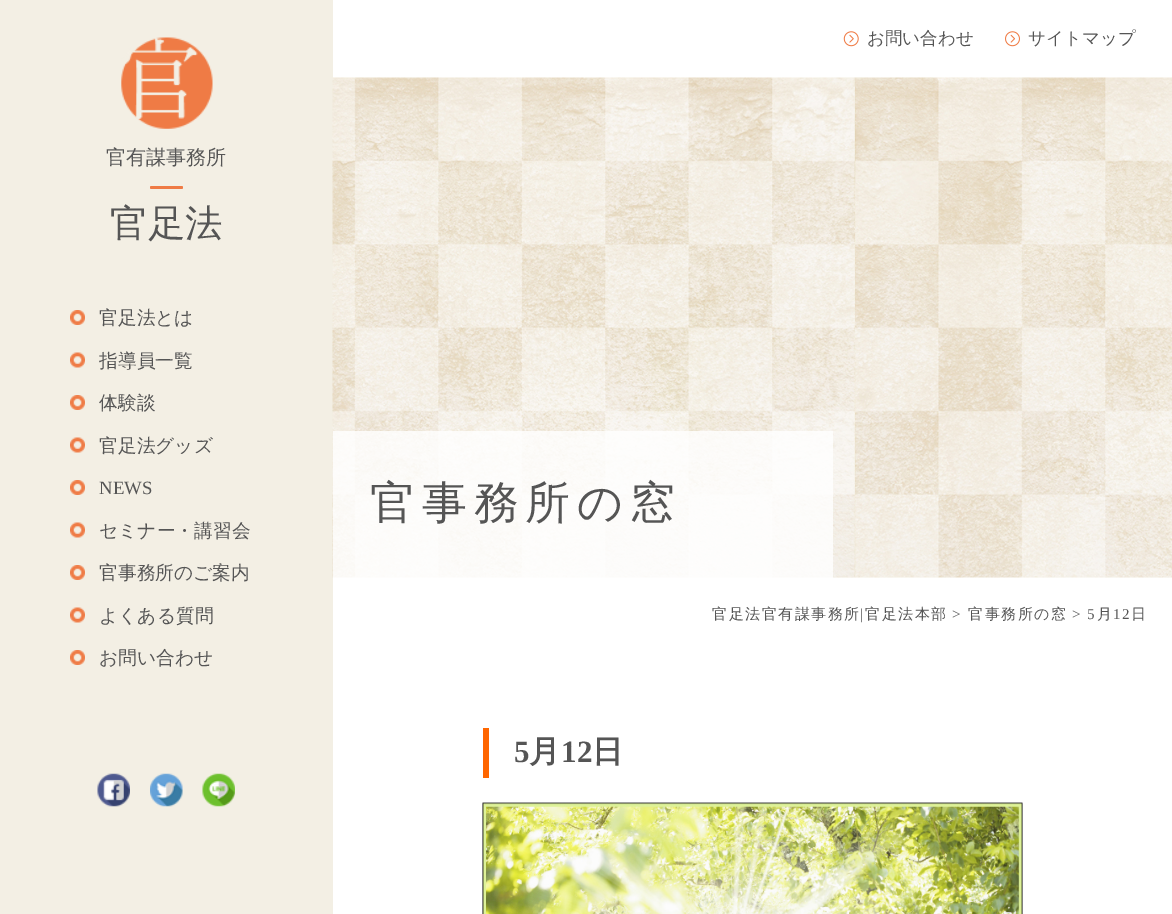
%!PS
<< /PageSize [1172 914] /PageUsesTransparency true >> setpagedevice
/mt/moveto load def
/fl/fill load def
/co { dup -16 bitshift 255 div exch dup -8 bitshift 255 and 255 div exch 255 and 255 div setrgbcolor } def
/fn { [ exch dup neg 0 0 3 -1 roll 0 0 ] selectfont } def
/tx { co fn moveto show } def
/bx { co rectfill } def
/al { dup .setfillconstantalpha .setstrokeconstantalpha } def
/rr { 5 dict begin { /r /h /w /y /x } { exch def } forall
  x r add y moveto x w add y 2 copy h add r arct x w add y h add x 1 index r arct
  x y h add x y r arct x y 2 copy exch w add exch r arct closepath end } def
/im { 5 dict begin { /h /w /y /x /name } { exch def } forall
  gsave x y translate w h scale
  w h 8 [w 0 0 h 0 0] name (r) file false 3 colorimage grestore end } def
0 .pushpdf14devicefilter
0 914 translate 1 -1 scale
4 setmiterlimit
0 0 1172 914 16#F3EFE4 bx
(media/1.raw) 121 37 92 92 im
16#EF7B45 co
150 186 33 3 1.5 rr fl
(media/2.raw) 70 310 15 15 im
(media/3.raw) 70 352 15 16 im
(media/2.raw) 70 395 15 15 im
(media/3.raw) 70 437 15 16 im
(media/2.raw) 70 480 15 15 im
(media/3.raw) 70 522 15 16 im
(media/2.raw) 70 565 15 15 im
(media/3.raw) 70 607 15 16 im
(media/2.raw) 70 650 15 15 im
(media/4.raw) 97 773 33 34 im
(media/5.raw) 150 773 33 34 im
(media/6.raw) 202 773 33 34 im
333 0 839 914 16#FFFFFF bx
(media/7.raw) 843 31 16 16 im
(media/8.raw) 1005 31 15 16 im
(media/9.raw) 332 77 840 501 im
0.8 al
333 431 500 147 16#FFFFFF bx
1 al
483 728 6 50 16#FF6600 bx
(media/10.raw) 482 802 541 112 im
(官有謀事務所) 106 164 /WenQuanYiZenHei-Medium 20 16#555555 tx
(官足法) 110 236 /WenQuanYiZenHei-Medium 37.5 16#555555 tx
(官足法とは) 99 324 /WenQuanYiZenHei-Medium 18.75 16#555555 tx
(指導員一覧) 99 367 /WenQuanYiZenHei-Medium 18.75 16#555555 tx
(体験談) 99 409 /WenQuanYiZenHei-Medium 18.75 16#555555 tx
(官足法グッズ) 99 452 /WenQuanYiZenHei-Medium 18.75 16#555555 tx
(NEWS) 99 494 /LiberationSerif-Regular 18.75 16#555555 tx
(セミナー・講習会) 99 537 /WenQuanYiZenHei-Medium 18.75 16#555555 tx
(官事務所のご案内) 99 579 /WenQuanYiZenHei-Medium 18.75 16#555555 tx
(よくある質問) 99 622 /WenQuanYiZenHei-Medium 18.75 16#555555 tx
(お問い合わせ) 99 664 /WenQuanYiZenHei-Medium 18.75 16#555555 tx
(お問い合わせ) 867 44 /WenQuanYiZenHei-Medium 17.5 16#555555 tx
(サイトマップ) 1028 44 /WenQuanYiZenHei-Medium 17.5 16#555555 tx
/WenQuanYiZenHei-Medium 45 fn
370 518 mt 6.75 0 (官事務所の窓) ashow
/WenQuanYiZenHei-Medium 15 fn
712 619 mt 1.5 0 (官足法官有謀事務所) ashow
/LiberationSerif-Regular 15 fn
860 619 mt 1.5 0 (|) ashow
/WenQuanYiZenHei-Medium 15 fn
865 619 mt 1.5 0 (官足法本部) ashow
/LiberationSerif-Regular 15 fn
952 619 mt 1.5 0 (>) ashow
/WenQuanYiZenHei-Medium 15 fn
968 619 mt 1.5 0 (官事務所の窓) ashow
/LiberationSerif-Regular 15 fn
1072 619 mt 1.5 0 (> 5) ashow
/WenQuanYiZenHei-Medium 15 fn
1097 619 mt 1.5 0 (月) ashow
/LiberationSerif-Regular 15 fn
1113 619 mt 1.5 0 (12) ashow
/WenQuanYiZenHei-Medium 15 fn
1131 619 mt 1.5 0 (日) ashow
(5) 514 762 /LiberationSerif-Bold 31 16#555555 tx
(月) 529 762 /WenQuanYiZenHei-Bold 31 16#555555 tx
(12) 561 762 /LiberationSerif-Bold 31 16#555555 tx
(日) 592 762 /WenQuanYiZenHei-Bold 31 16#555555 tx
.poppdf14devicefilter showpage
